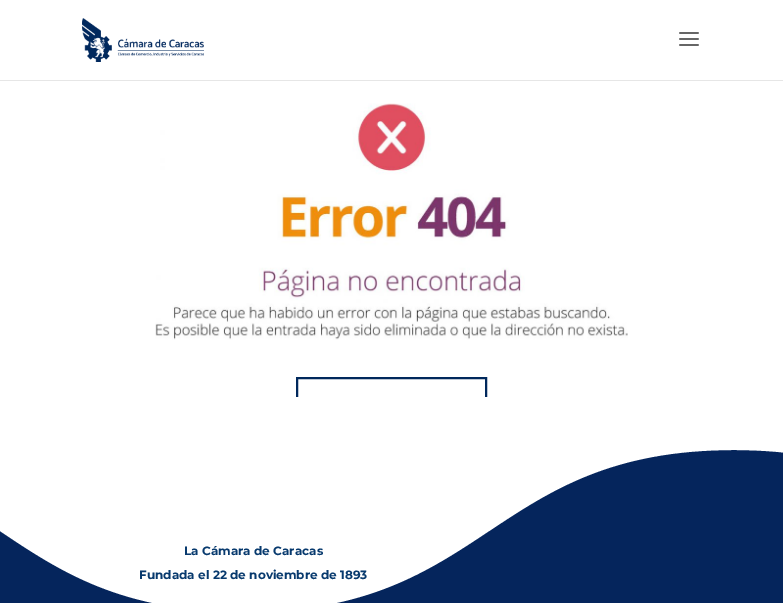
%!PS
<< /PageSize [783 603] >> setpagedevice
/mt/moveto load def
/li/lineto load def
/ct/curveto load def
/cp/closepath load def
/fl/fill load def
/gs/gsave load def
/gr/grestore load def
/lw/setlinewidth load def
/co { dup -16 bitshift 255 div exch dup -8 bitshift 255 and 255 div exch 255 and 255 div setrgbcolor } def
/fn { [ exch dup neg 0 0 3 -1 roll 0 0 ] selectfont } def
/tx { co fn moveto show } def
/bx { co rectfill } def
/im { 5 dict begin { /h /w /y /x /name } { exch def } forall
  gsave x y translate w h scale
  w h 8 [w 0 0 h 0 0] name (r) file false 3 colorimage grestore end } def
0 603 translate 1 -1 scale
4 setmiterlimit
0 0 783 603 16#FFFFFF bx
0 80 783 1 16#E6E6E6 bx
(media/1.raw) 82 18 122 44 im
(media/2.raw) 679 32 20 14 im
(media/3.raw) 155 103 473 237 im
16#00285C co
2 lw
297 378 189 48 rectstroke
0 450 783 153 16#05255C bx
gs
0 397 783 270 rectclip
16#FFFFFF co
245 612 mt 489 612 489 450 734 450 ct 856 450 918 491 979 531 ct 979 396 li 0 396 li 0 531 li 61 572 122 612 245 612 ct cp fl
gr
(La Cámara de Caracas) 184 555 /Montserrat-Thin 12 16#083A6E tx
(Fundada el 22 de noviembre de 1893) 139 579 /Montserrat-Thin 12 16#083A6E tx
showpage
